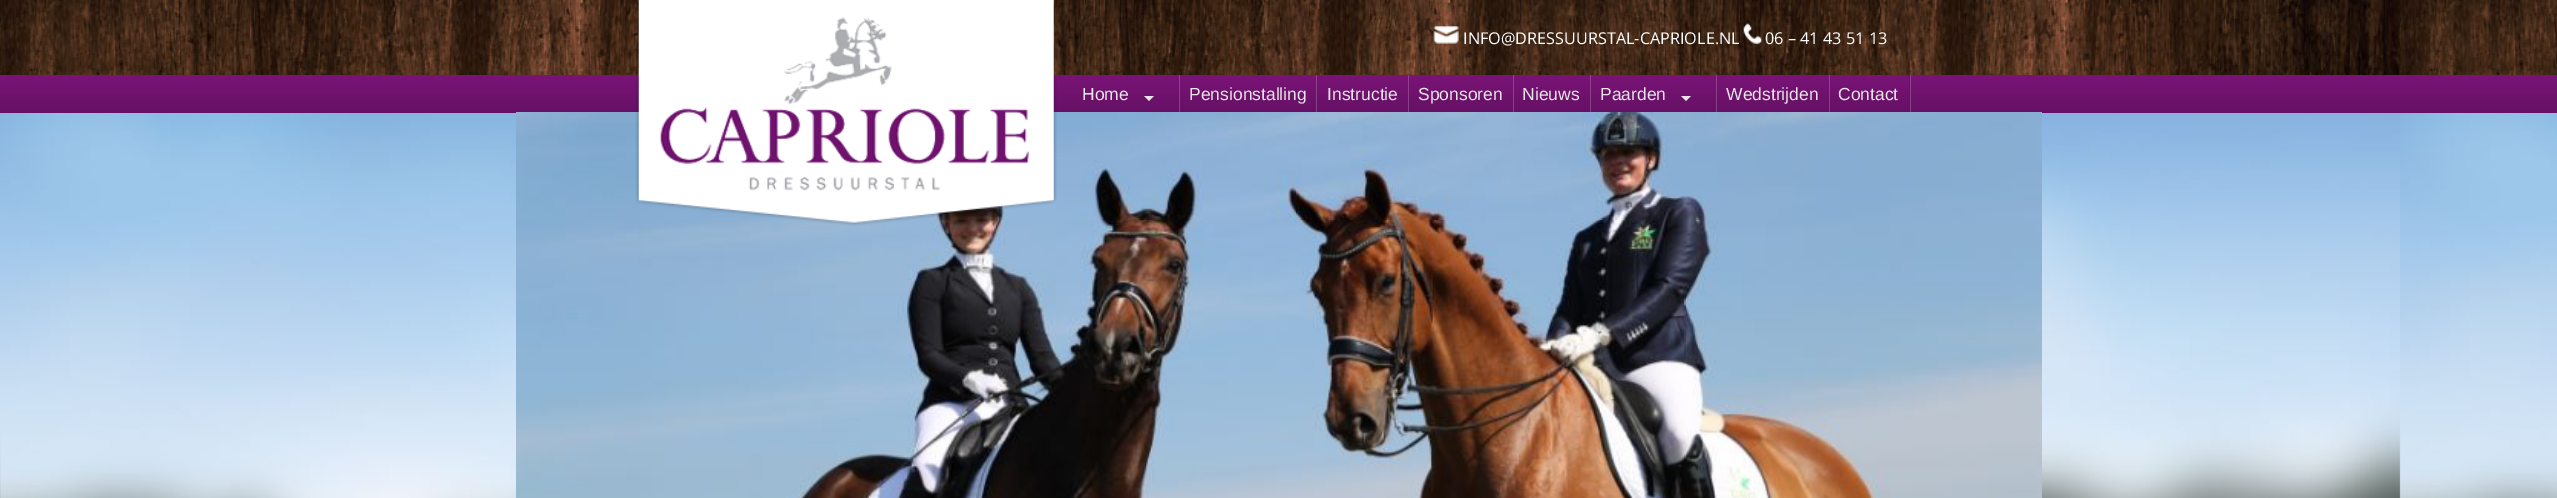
%!PS
<< /PageSize [2557 498] /PageUsesTransparency true >> setpagedevice
/mt/moveto load def
/li/lineto load def
/cp/closepath load def
/fl/fill load def
/gs/gsave load def
/gr/grestore load def
/co { dup -16 bitshift 255 div exch dup -8 bitshift 255 and 255 div exch 255 and 255 div setrgbcolor } def
/fn { [ exch dup neg 0 0 3 -1 roll 0 0 ] selectfont } def
/tx { co fn moveto show } def
/bx { co rectfill } def
/al { dup .setfillconstantalpha .setstrokeconstantalpha } def
/im { 5 dict begin { /h /w /y /x /name } { exch def } forall
  gsave x y translate w h scale
  w h 8 [w 0 0 h 0 0] name (r) file false 3 colorimage grestore end } def
0 .pushpdf14devicefilter
0 498 translate 1 -1 scale
4 setmiterlimit
0 0 2557 498 16#FFFFFF bx
(media/1.raw) 0 113 2557 385 im
(media/2.raw) 0 0 2557 75 im
gs 0 75 mt 2557 75 li 2557 113 li 0 113 li cp clip newpath
<< /ShadingType 2 /ColorSpace /DeviceRGB /Coords [1279 75 1279 113] /Extend [true true] /Function << /FunctionType 2 /Domain [0 1] /C0 [.478 .078 .467] /C1 [.396 .063 .396] /N 1 >> >> shfill gr
0.2 al
1179 75 1 38 16#FFFFFF bx
1316 75 1 38 16#FFFFFF bx
1408 75 1 38 16#FFFFFF bx
1513 75 1 38 16#FFFFFF bx
1590 75 1 38 16#FFFFFF bx
1716 75 1 38 16#FFFFFF bx
1830 112 mt 1830 113 li 1911 113 li 1911 75 li 1910 75 li 1910 112 li cp fl
1829 75 1 38 16#FFFFFF bx
1 al
1909 75 1 38 16#333333 bx
(media/6.raw) 516 112 1526 386 im
(media/3.raw) 635 0 422 226 im
(media/4.raw) 1433 26 26 18 im
(media/5.raw) 1743 23 19 21 im
16#E6E6E6 co
1144 96 mt 1154 96 li 1149 101 li cp fl
1681 96 mt 1691 96 li 1686 101 li cp fl
(INFO@DRESSUURSTAL-CAPRIOLE.NL) 1463 44 /OpenSans-Regular 16.25 16#FFFFFF tx
(06 – 41 43 51 13) 1765 44 /OpenSans-Regular 16.25 16#FFFFFF tx
(Home) 1082 100 /LiberationSans-Regular 17.5 16#E6E6E6 tx
(Pensionstalling) 1189 100 /LiberationSans-Regular 17.5 16#E6E6E6 tx
(Instructie) 1327 100 /LiberationSans-Regular 17.5 16#E6E6E6 tx
(Sponsoren) 1418 100 /LiberationSans-Regular 17.5 16#E6E6E6 tx
(Nieuws) 1522 100 /LiberationSans-Regular 17.5 16#E6E6E6 tx
(Paarden) 1600 100 /LiberationSans-Regular 17.5 16#E6E6E6 tx
(Wedstrijden) 1726 100 /LiberationSans-Regular 17.5 16#E6E6E6 tx
(Contact) 1838 100 /LiberationSans-Regular 17.5 16#E6E6E6 tx
.poppdf14devicefilter showpage
